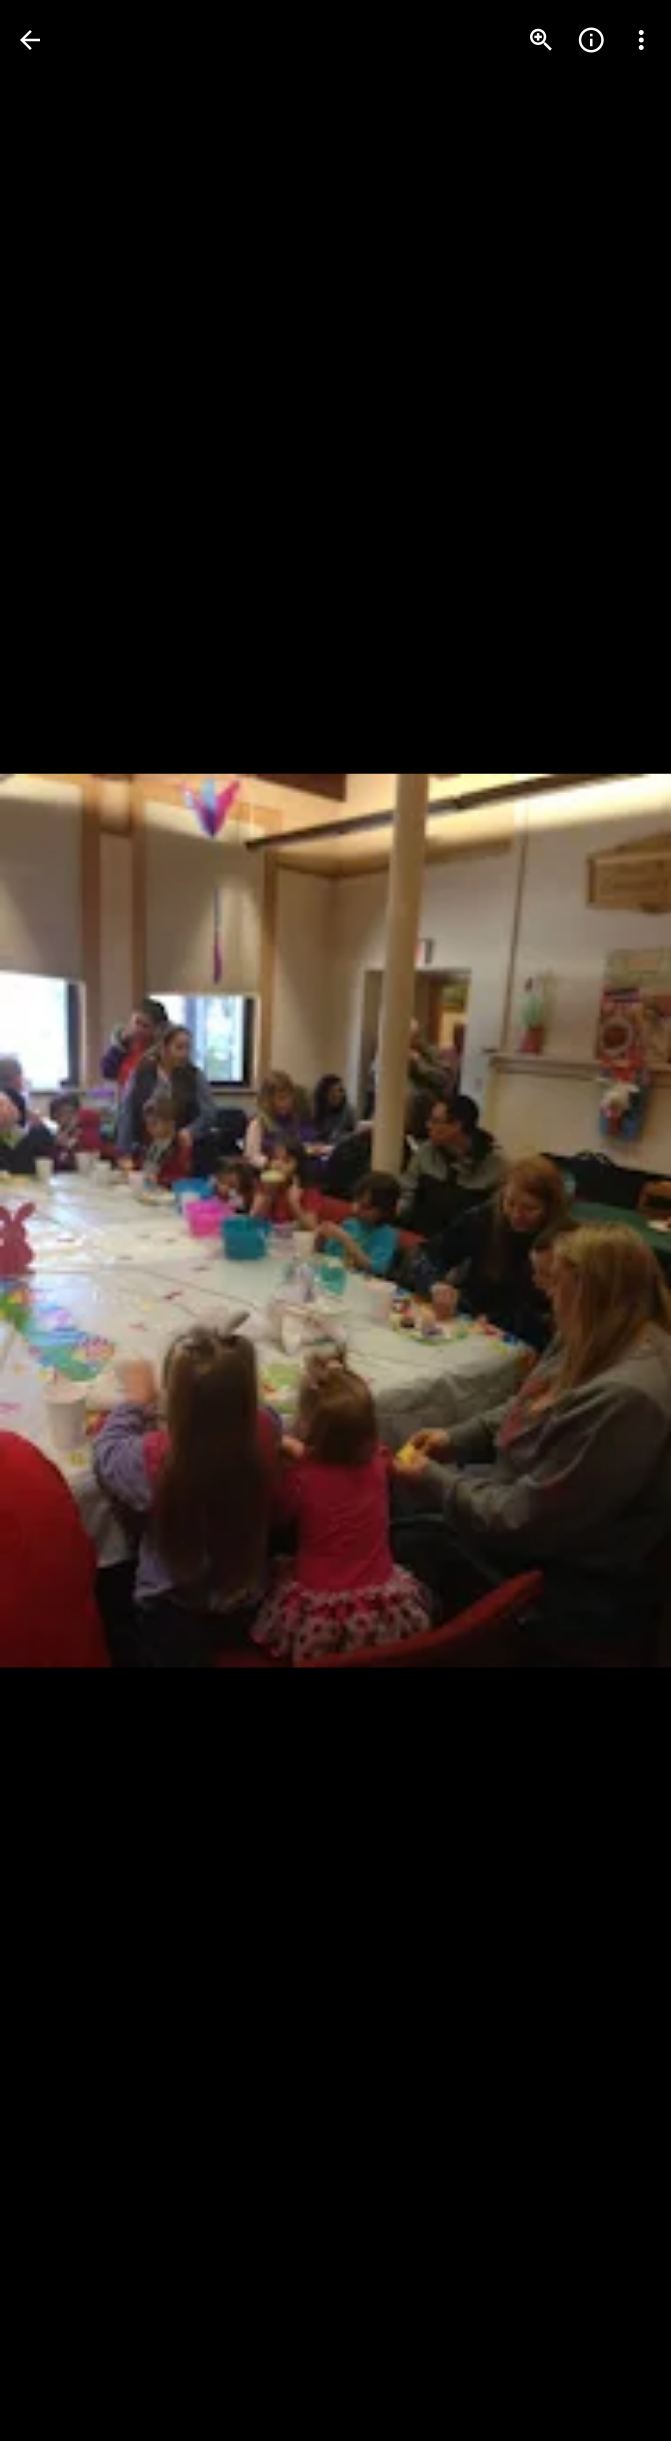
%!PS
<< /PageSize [671 2441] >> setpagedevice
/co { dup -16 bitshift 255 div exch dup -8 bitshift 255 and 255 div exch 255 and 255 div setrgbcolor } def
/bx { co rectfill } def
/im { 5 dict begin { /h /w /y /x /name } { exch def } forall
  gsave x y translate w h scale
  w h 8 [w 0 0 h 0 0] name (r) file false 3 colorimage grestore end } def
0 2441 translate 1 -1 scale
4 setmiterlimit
0 0 671 2441 16#000000 bx
(media/1.raw) 20 30 20 20 im
(media/2.raw) 530 28 22 23 im
(media/3.raw) 578 27 26 26 im
(media/4.raw) 638 30 6 20 im
(media/5.raw) 0 773 671 895 im
showpage
